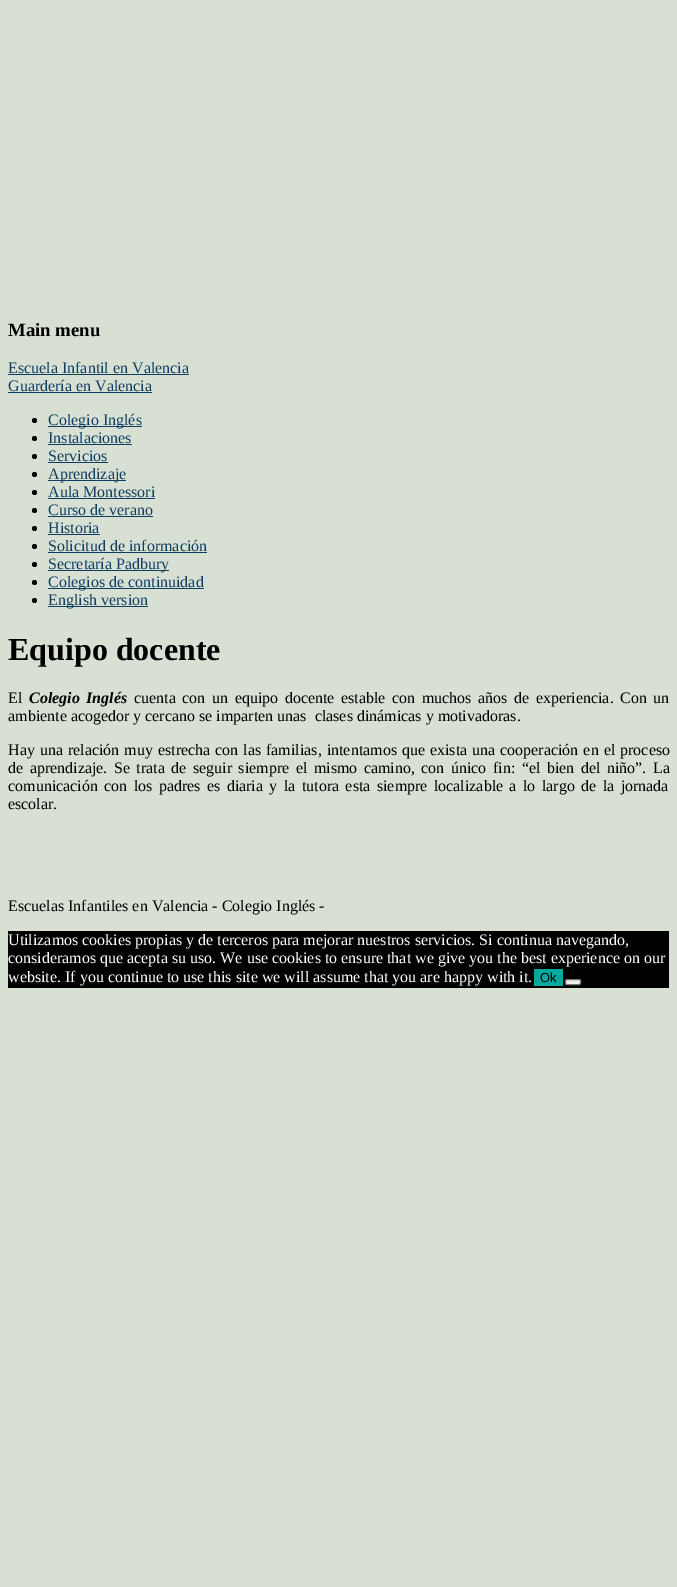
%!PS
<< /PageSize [677 1587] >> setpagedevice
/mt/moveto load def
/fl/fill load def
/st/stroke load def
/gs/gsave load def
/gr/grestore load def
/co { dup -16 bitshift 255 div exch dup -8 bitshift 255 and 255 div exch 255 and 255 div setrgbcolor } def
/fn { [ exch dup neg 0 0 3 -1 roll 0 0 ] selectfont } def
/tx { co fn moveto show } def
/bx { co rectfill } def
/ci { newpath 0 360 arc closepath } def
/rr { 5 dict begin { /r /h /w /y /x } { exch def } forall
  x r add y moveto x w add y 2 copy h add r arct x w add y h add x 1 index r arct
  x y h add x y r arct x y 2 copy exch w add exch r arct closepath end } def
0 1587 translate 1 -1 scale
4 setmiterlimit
0 0 677 1587 16#D8E0D3 bx
8 374 181 1 16#0F3E62 bx
8 392 144 1 16#0F3E62 bx
16#000000 co
34.5 420.5 2.5 ci fl
48 426 94 1 16#0F3E62 bx
16#000000 co
34.5 438.5 2.5 ci fl
48 444 84 1 16#0F3E62 bx
16#000000 co
34.5 456.5 2.5 ci fl
48 462 60 1 16#0F3E62 bx
16#000000 co
34.5 474.5 2.5 ci fl
48 480 78 1 16#0F3E62 bx
16#000000 co
34.5 492.5 2.5 ci fl
48 498 107 1 16#0F3E62 bx
16#000000 co
34.5 510.5 2.5 ci fl
48 516 105 1 16#0F3E62 bx
16#000000 co
34.5 528.5 2.5 ci fl
48 534 52 1 16#0F3E62 bx
16#000000 co
34.5 546.5 2.5 ci fl
48 552 159 1 16#0F3E62 bx
16#000000 co
34.5 564.5 2.5 ci fl
48 570 121 1 16#0F3E62 bx
16#000000 co
34.5 582.5 2.5 ci fl
48 588 156 1 16#0F3E62 bx
16#000000 co
34.5 600.5 2.5 ci fl
48 606 100 1 16#0F3E62 bx
8 931 661 57 16#000000 bx
534 969 29 17 16#00A99D bx
16#EFEFEF co
565.5 979.5 15 5 1.5 rr gs fl gr
16#767676 co
st
(Main menu) 8 336 /LiberationSerif-Bold 18.75 16#000000 tx
(Escuela Infantil en Valencia) 8 373 /LiberationSerif-Regular 16 16#0F3E62 tx
(Guardería en Valencia) 8 391 /LiberationSerif-Regular 16 16#0F3E62 tx
(Colegio Inglés) 48 425 /LiberationSerif-Regular 16 16#0F3E62 tx
(Instalaciones) 48 443 /LiberationSerif-Regular 16 16#0F3E62 tx
(Servicios) 48 461 /LiberationSerif-Regular 16 16#0F3E62 tx
(Aprendizaje) 48 479 /LiberationSerif-Regular 16 16#0F3E62 tx
(Aula Montessori) 48 497 /LiberationSerif-Regular 16 16#0F3E62 tx
(Curso de verano) 48 515 /LiberationSerif-Regular 16 16#0F3E62 tx
(Historia) 48 533 /LiberationSerif-Regular 16 16#0F3E62 tx
(Solicitud de información) 48 551 /LiberationSerif-Regular 16 16#0F3E62 tx
(Secretaría Padbury) 48 569 /LiberationSerif-Regular 16 16#0F3E62 tx
(Colegios de continuidad) 48 587 /LiberationSerif-Regular 16 16#0F3E62 tx
(English version) 48 605 /LiberationSerif-Regular 16 16#0F3E62 tx
(Equipo docente) 8 660 /LiberationSerif-Bold 32 16#000000 tx
(El) 8 703 /LiberationSerif-Regular 16 16#000000 tx
/LiberationSerif-BoldItalic 16 fn
29 703 mt 2.6 0 32 (Colegio Inglés) widthshow
/LiberationSerif-Regular 16 fn
134 703 mt 2.6 0 32 (cuenta con un equipo docente estable con muchos años de experiencia. Con un) widthshow
(ambiente acogedor y cercano se imparten unas  clases dinámicas y motivadoras.) 8 721 /LiberationSerif-Regular 16 16#000000 tx
8 755 mt 1 0 32 (Hay una relación muy estrecha con las familias, intentamos que exista una cooperación en el proceso) widthshow
8 773 mt 2.5 0 32 (de aprendizaje. Se trata de seguir siempre el mismo camino, con único fin: “el bien del niño”. La) widthshow
8 791 mt 2.4 0 32 (comunicación con los padres es diaria y la tutora esta siempre localizable a lo largo de la jornada) widthshow
(escolar.) 8 809 /LiberationSerif-Regular 16 16#000000 tx
(Escuelas Infantiles en Valencia - Colegio Inglés -) 8 911 /LiberationSerif-Regular 16 16#000000 tx
(Utilizamos cookies propias y de terceros para mejorar nuestros servicios. Si continua navegando,) 8 945 /LiberationSerif-Regular 16 16#FFFFFF tx
(consideramos que acepta su uso. We use cookies to ensure that we give you the best experience on our) 8 963 /LiberationSerif-Regular 16 16#FFFFFF tx
(website. If you continue to use this site we will assume that you are happy with it.) 8 982 /LiberationSerif-Regular 16 16#FFFFFF tx
(Ok) 540 982 /LiberationSans-Regular 13 16#000000 tx
showpage
